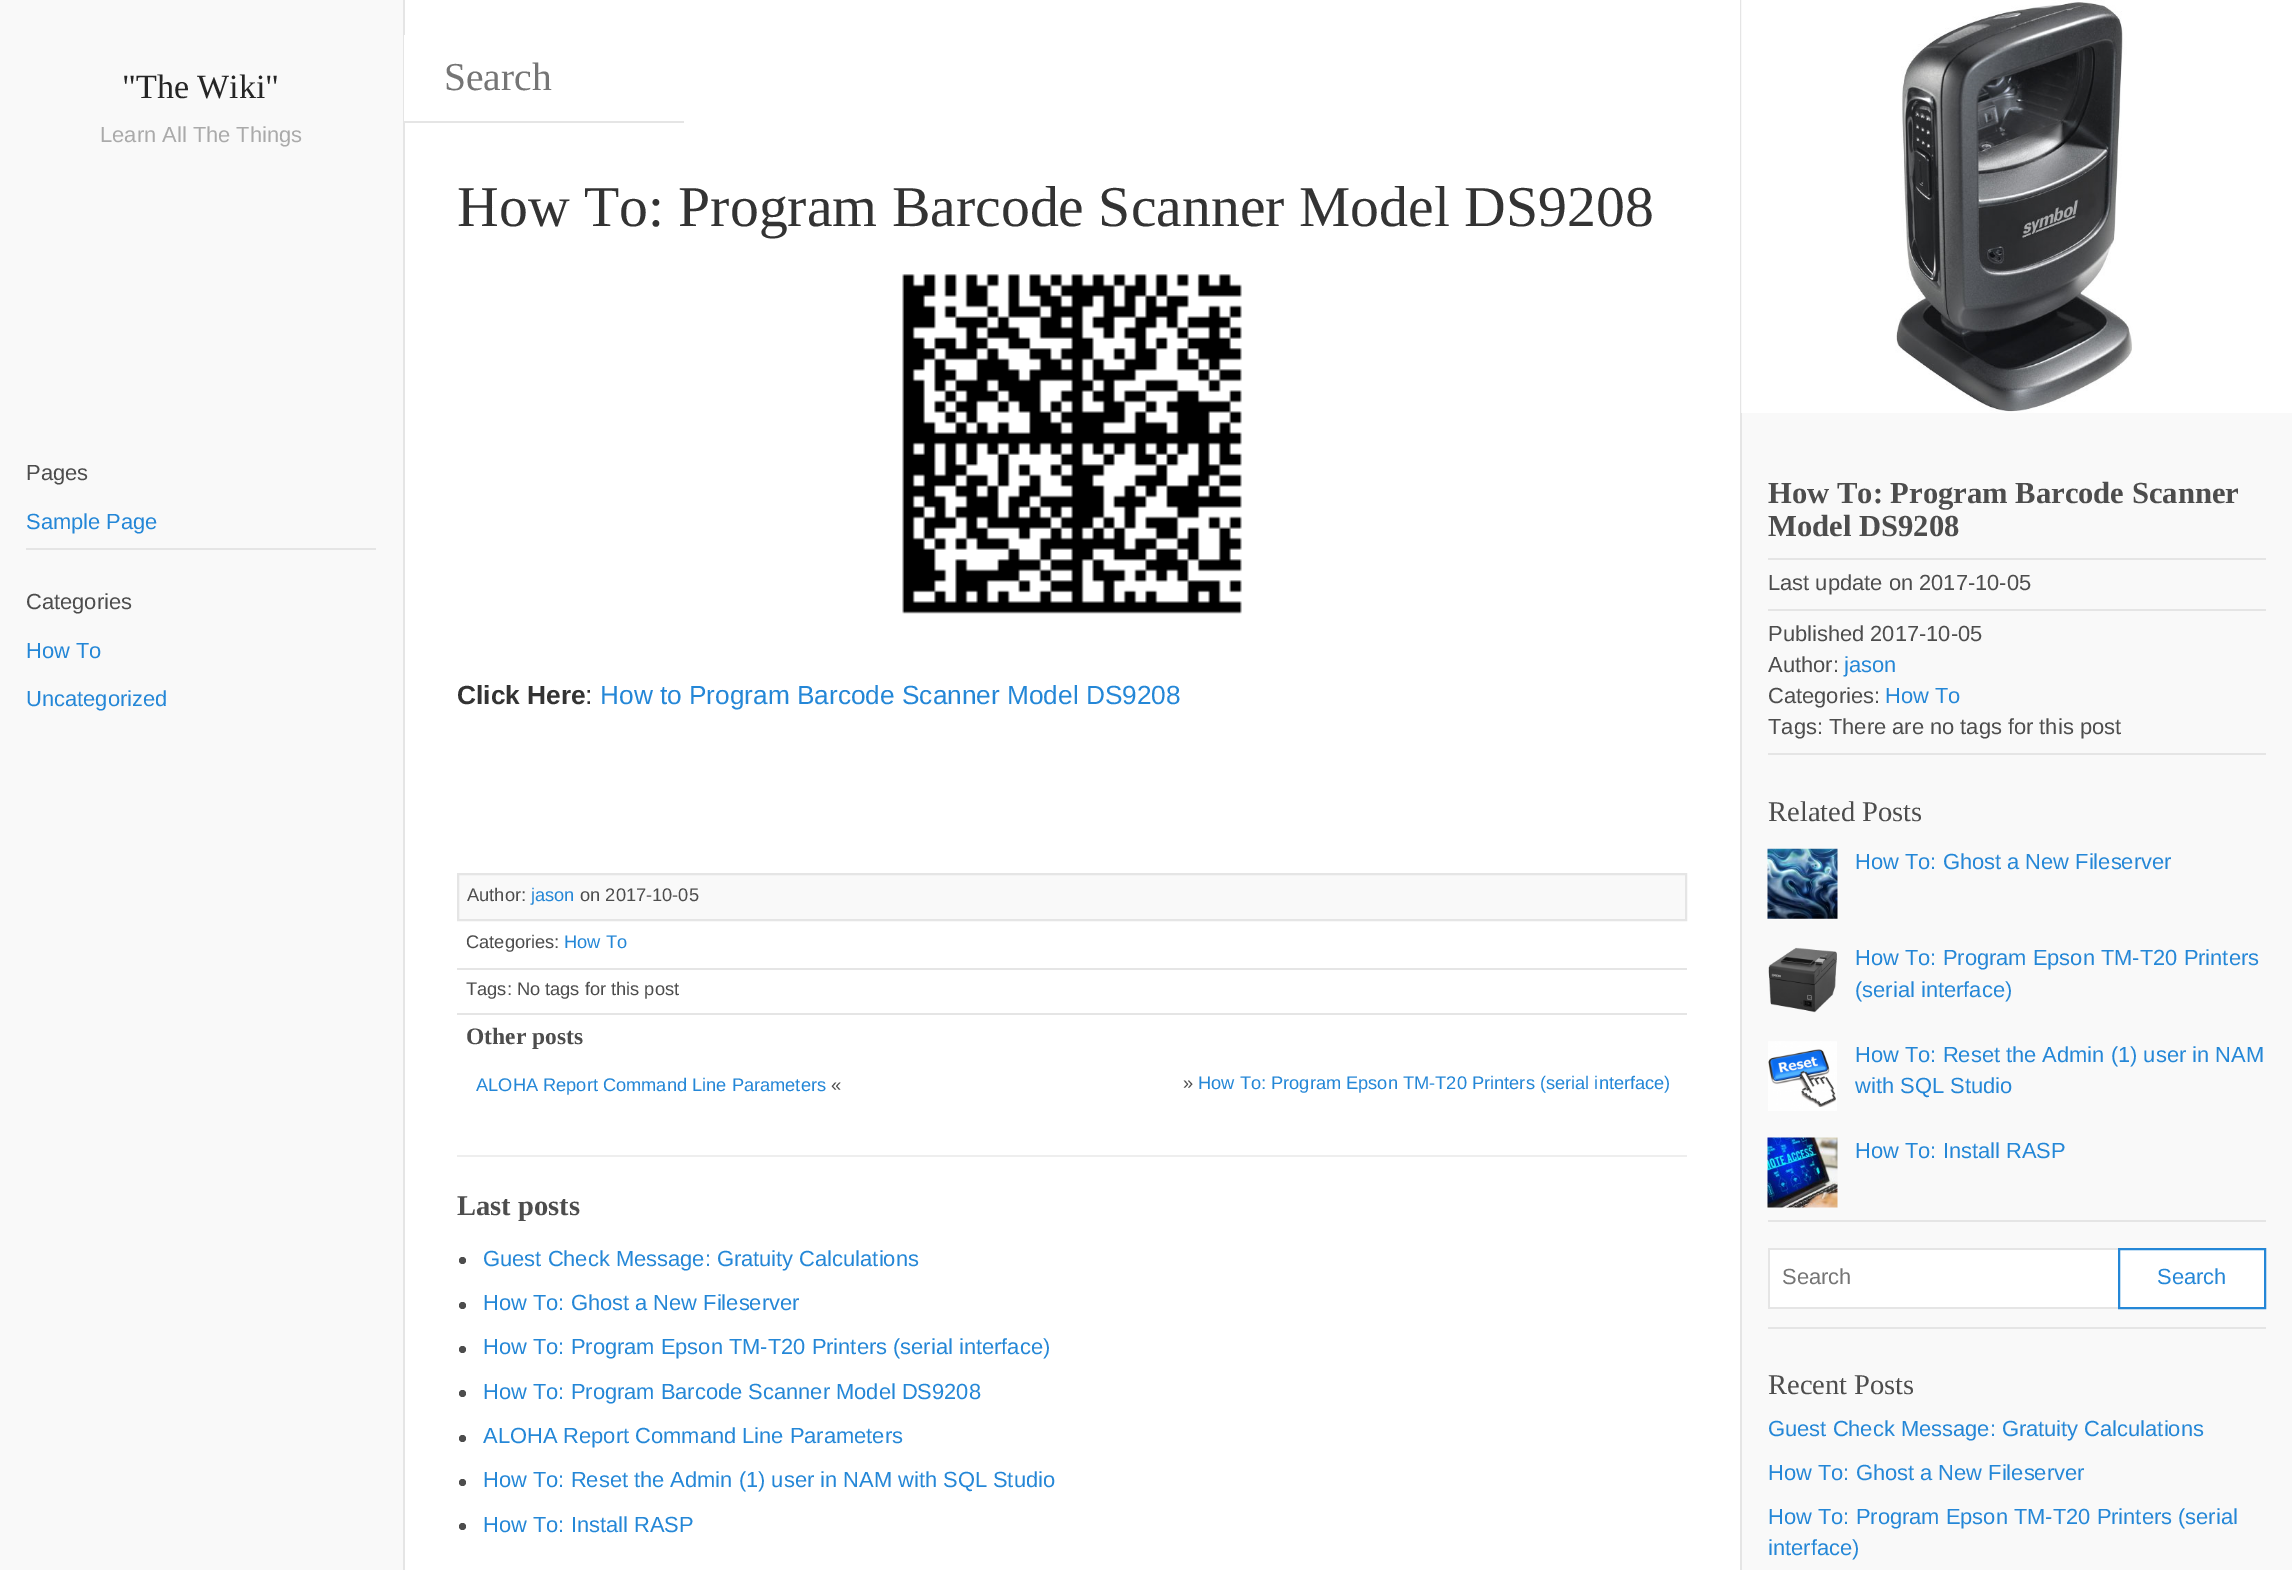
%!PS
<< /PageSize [2292 1570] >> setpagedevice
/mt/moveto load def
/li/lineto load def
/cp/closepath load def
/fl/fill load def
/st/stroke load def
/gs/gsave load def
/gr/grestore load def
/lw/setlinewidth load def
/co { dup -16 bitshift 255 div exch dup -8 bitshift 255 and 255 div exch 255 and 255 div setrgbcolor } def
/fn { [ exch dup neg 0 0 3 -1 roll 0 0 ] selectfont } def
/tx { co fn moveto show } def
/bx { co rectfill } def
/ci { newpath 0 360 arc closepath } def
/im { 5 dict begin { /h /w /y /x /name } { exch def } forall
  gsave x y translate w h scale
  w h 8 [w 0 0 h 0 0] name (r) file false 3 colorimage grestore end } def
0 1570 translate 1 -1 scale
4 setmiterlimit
0 0 2292 1570 16#F9F9F9 bx
405 0 1335 1570 16#FFFFFF bx
1740 0 2 1570 16#E5E5E5 bx
403 0 2 1570 16#E5E5E5 bx
404 35 1 86 16#FFFFFF bx
404 121 280 2 16#E5E5E5 bx
26 548 350 2 16#E5E5E5 bx
(media/1.raw) 902 274 340 340 im
16#F9F9F9 co
458 874 mt 1686 874 li 1686 920 li 458 920 li cp gs fl gr
16#E5E5E5 co
2 lw
st
457 968 1230 2 16#E5E5E5 bx
457 1013 1230 2 16#E5E5E5 bx
457 1155 1230 2 16#EEEEEE bx
16#4D4D4D co
462.5 1260.5 3.5 ci fl
462.5 1305.5 3.5 ci fl
462.5 1349.5 3.5 ci fl
462.5 1393.5 3.5 ci fl
462.5 1438.5 3.5 ci fl
462.5 1482.5 3.5 ci fl
462.5 1526.5 3.5 ci fl
(media/2.raw) 1741 0 551 413 im
1768 558 498 2 16#E5E5E5 bx
1768 609 498 2 16#E5E5E5 bx
1768 753 498 2 16#E5E5E5 bx
1768 1220 498 2 16#E5E5E5 bx
(media/3.raw) 1767 848 71 71 im
(media/4.raw) 1768 947 69 66 im
(media/5.raw) 1768 1041 69 70 im
(media/6.raw) 1767 1137 71 71 im
1768 1327 498 2 16#E5E5E5 bx
1770 1250 348 57 16#FFFFFF bx
1768 1248 350 2 16#E5E5E5 bx
1768 1307 350 2 16#E5E5E5 bx
1768 1248 2 61 16#E5E5E5 bx
16#FFFFFF co
2119 1249 mt 2265 1249 li 2265 1308 li 2119 1308 li cp gs fl gr
16#2487D7 co
st
(Search) 444 90 /LiberationSerif-Regular 39.5 16#757575 tx
(Pages) 26 480 /LiberationSans-Regular 21.9 16#4D4D4D tx
(Sample Page) 26 529 /LiberationSans-Regular 21.9 16#2487D7 tx
(Categories) 26 609 /LiberationSans-Regular 21.9 16#4D4D4D tx
(How To) 26 658 /LiberationSans-Regular 21.9 16#2487D7 tx
(Uncategorized) 26 706 /LiberationSans-Regular 21.9 16#2487D7 tx
(How To: Program Barcode Scanner Model DS9208) 457 226 /LiberationSerif-Regular 57.75 16#333333 tx
(Click Here) 457 704 /LiberationSans-Bold 26.25 16#333333 tx
(:) 585 704 /LiberationSans-Regular 26.25 16#333333 tx
(How to Program Barcode Scanner Model DS9208) 600 704 /LiberationSans-Regular 26.25 16#2487D7 tx
(Author:) 467 901 /LiberationSans-Regular 18.25 16#4D4D4D tx
(jason) 531 901 /LiberationSans-Regular 18.25 16#2487D7 tx
(on 2017-10-05) 580 901 /LiberationSans-Regular 18.25 16#4D4D4D tx
(Categories:) 466 948 /LiberationSans-Regular 18.25 16#4D4D4D tx
(How To) 564 948 /LiberationSans-Regular 18.25 16#2487D7 tx
(Tags: No tags for this post) 466 995 /LiberationSans-Regular 18.25 16#4D4D4D tx
(Other posts) 466 1044 /LiberationSerif-Bold 23.5 16#4D4D4D tx
(ALOHA Report Command Line Parameters) 476 1091 /LiberationSans-Regular 18.25 16#2487D7 tx
(«) 831 1091 /LiberationSans-Regular 18.25 16#4D4D4D tx
(») 1183 1089 /LiberationSans-Regular 18.25 16#4D4D4D tx
(How To: Program Epson TM-T20 Printers \(serial interface\)) 1198 1089 /LiberationSans-Regular 18.25 16#2487D7 tx
(Last posts) 457 1215 /LiberationSerif-Bold 28.5 16#4D4D4D tx
(Guest Check Message: Gratuity Calculations) 483 1266 /LiberationSans-Regular 21.9 16#2487D7 tx
(How To: Ghost a New Fileserver) 483 1310 /LiberationSans-Regular 21.9 16#2487D7 tx
(How To: Program Epson TM-T20 Printers \(serial interface\)) 483 1354 /LiberationSans-Regular 21.9 16#2487D7 tx
(How To: Program Barcode Scanner Model DS9208) 483 1399 /LiberationSans-Regular 21.9 16#2487D7 tx
(ALOHA Report Command Line Parameters) 483 1443 /LiberationSans-Regular 21.9 16#2487D7 tx
(How To: Reset the Admin \(1\) user in NAM with SQL Studio) 483 1487 /LiberationSans-Regular 21.9 16#2487D7 tx
(How To: Install RASP) 483 1532 /LiberationSans-Regular 21.9 16#2487D7 tx
(How To: Program Barcode Scanner) 1768 503 /LiberationSerif-Bold 30.6 16#4D4D4D tx
(Model DS9208) 1768 536 /LiberationSerif-Bold 30.6 16#4D4D4D tx
(Last update on 2017-10-05) 1768 590 /LiberationSans-Regular 21.9 16#4D4D4D tx
(Published 2017-10-05) 1768 641 /LiberationSans-Regular 21.9 16#4D4D4D tx
(Author:) 1768 672 /LiberationSans-Regular 21.9 16#4D4D4D tx
(jason) 1844 672 /LiberationSans-Regular 21.9 16#2487D7 tx
(Categories:) 1768 703 /LiberationSans-Regular 21.9 16#4D4D4D tx
(How To) 1885 703 /LiberationSans-Regular 21.9 16#2487D7 tx
(Tags: There are no tags for this post) 1768 734 /LiberationSans-Regular 21.9 16#4D4D4D tx
(Related Posts) 1768 821 /LiberationSerif-Regular 28.5 16#4D4D4D tx
(How To: Ghost a New Fileserver) 1855 869 /LiberationSans-Regular 21.9 16#2487D7 tx
(How To: Program Epson TM-T20 Printers) 1855 965 /LiberationSans-Regular 21.9 16#2487D7 tx
(\(serial interface\)) 1855 997 /LiberationSans-Regular 21.9 16#2487D7 tx
(How To: Reset the Admin \(1\) user in NAM) 1855 1062 /LiberationSans-Regular 21.9 16#2487D7 tx
(with SQL Studio) 1855 1093 /LiberationSans-Regular 21.9 16#2487D7 tx
(How To: Install RASP) 1855 1158 /LiberationSans-Regular 21.9 16#2487D7 tx
(Search) 1782 1284 /LiberationSans-Regular 21.9 16#757575 tx
(Search) 2157 1284 /LiberationSans-Regular 21.9 16#2487D7 tx
(Recent Posts) 1768 1394 /LiberationSerif-Regular 28.5 16#4D4D4D tx
(Guest Check Message: Gratuity Calculations) 1768 1436 /LiberationSans-Regular 21.9 16#2487D7 tx
(How To: Ghost a New Fileserver) 1768 1480 /LiberationSans-Regular 21.9 16#2487D7 tx
(How To: Program Epson TM-T20 Printers \(serial) 1768 1524 /LiberationSans-Regular 21.9 16#2487D7 tx
(interface\)) 1768 1555 /LiberationSans-Regular 21.9 16#2487D7 tx
("The Wiki") 122 98 /LiberationSerif-Regular 34 16#252525 tx
(Learn All The Things) 100 142 /LiberationSans-Regular 21.9 16#AAAAAA tx
showpage
